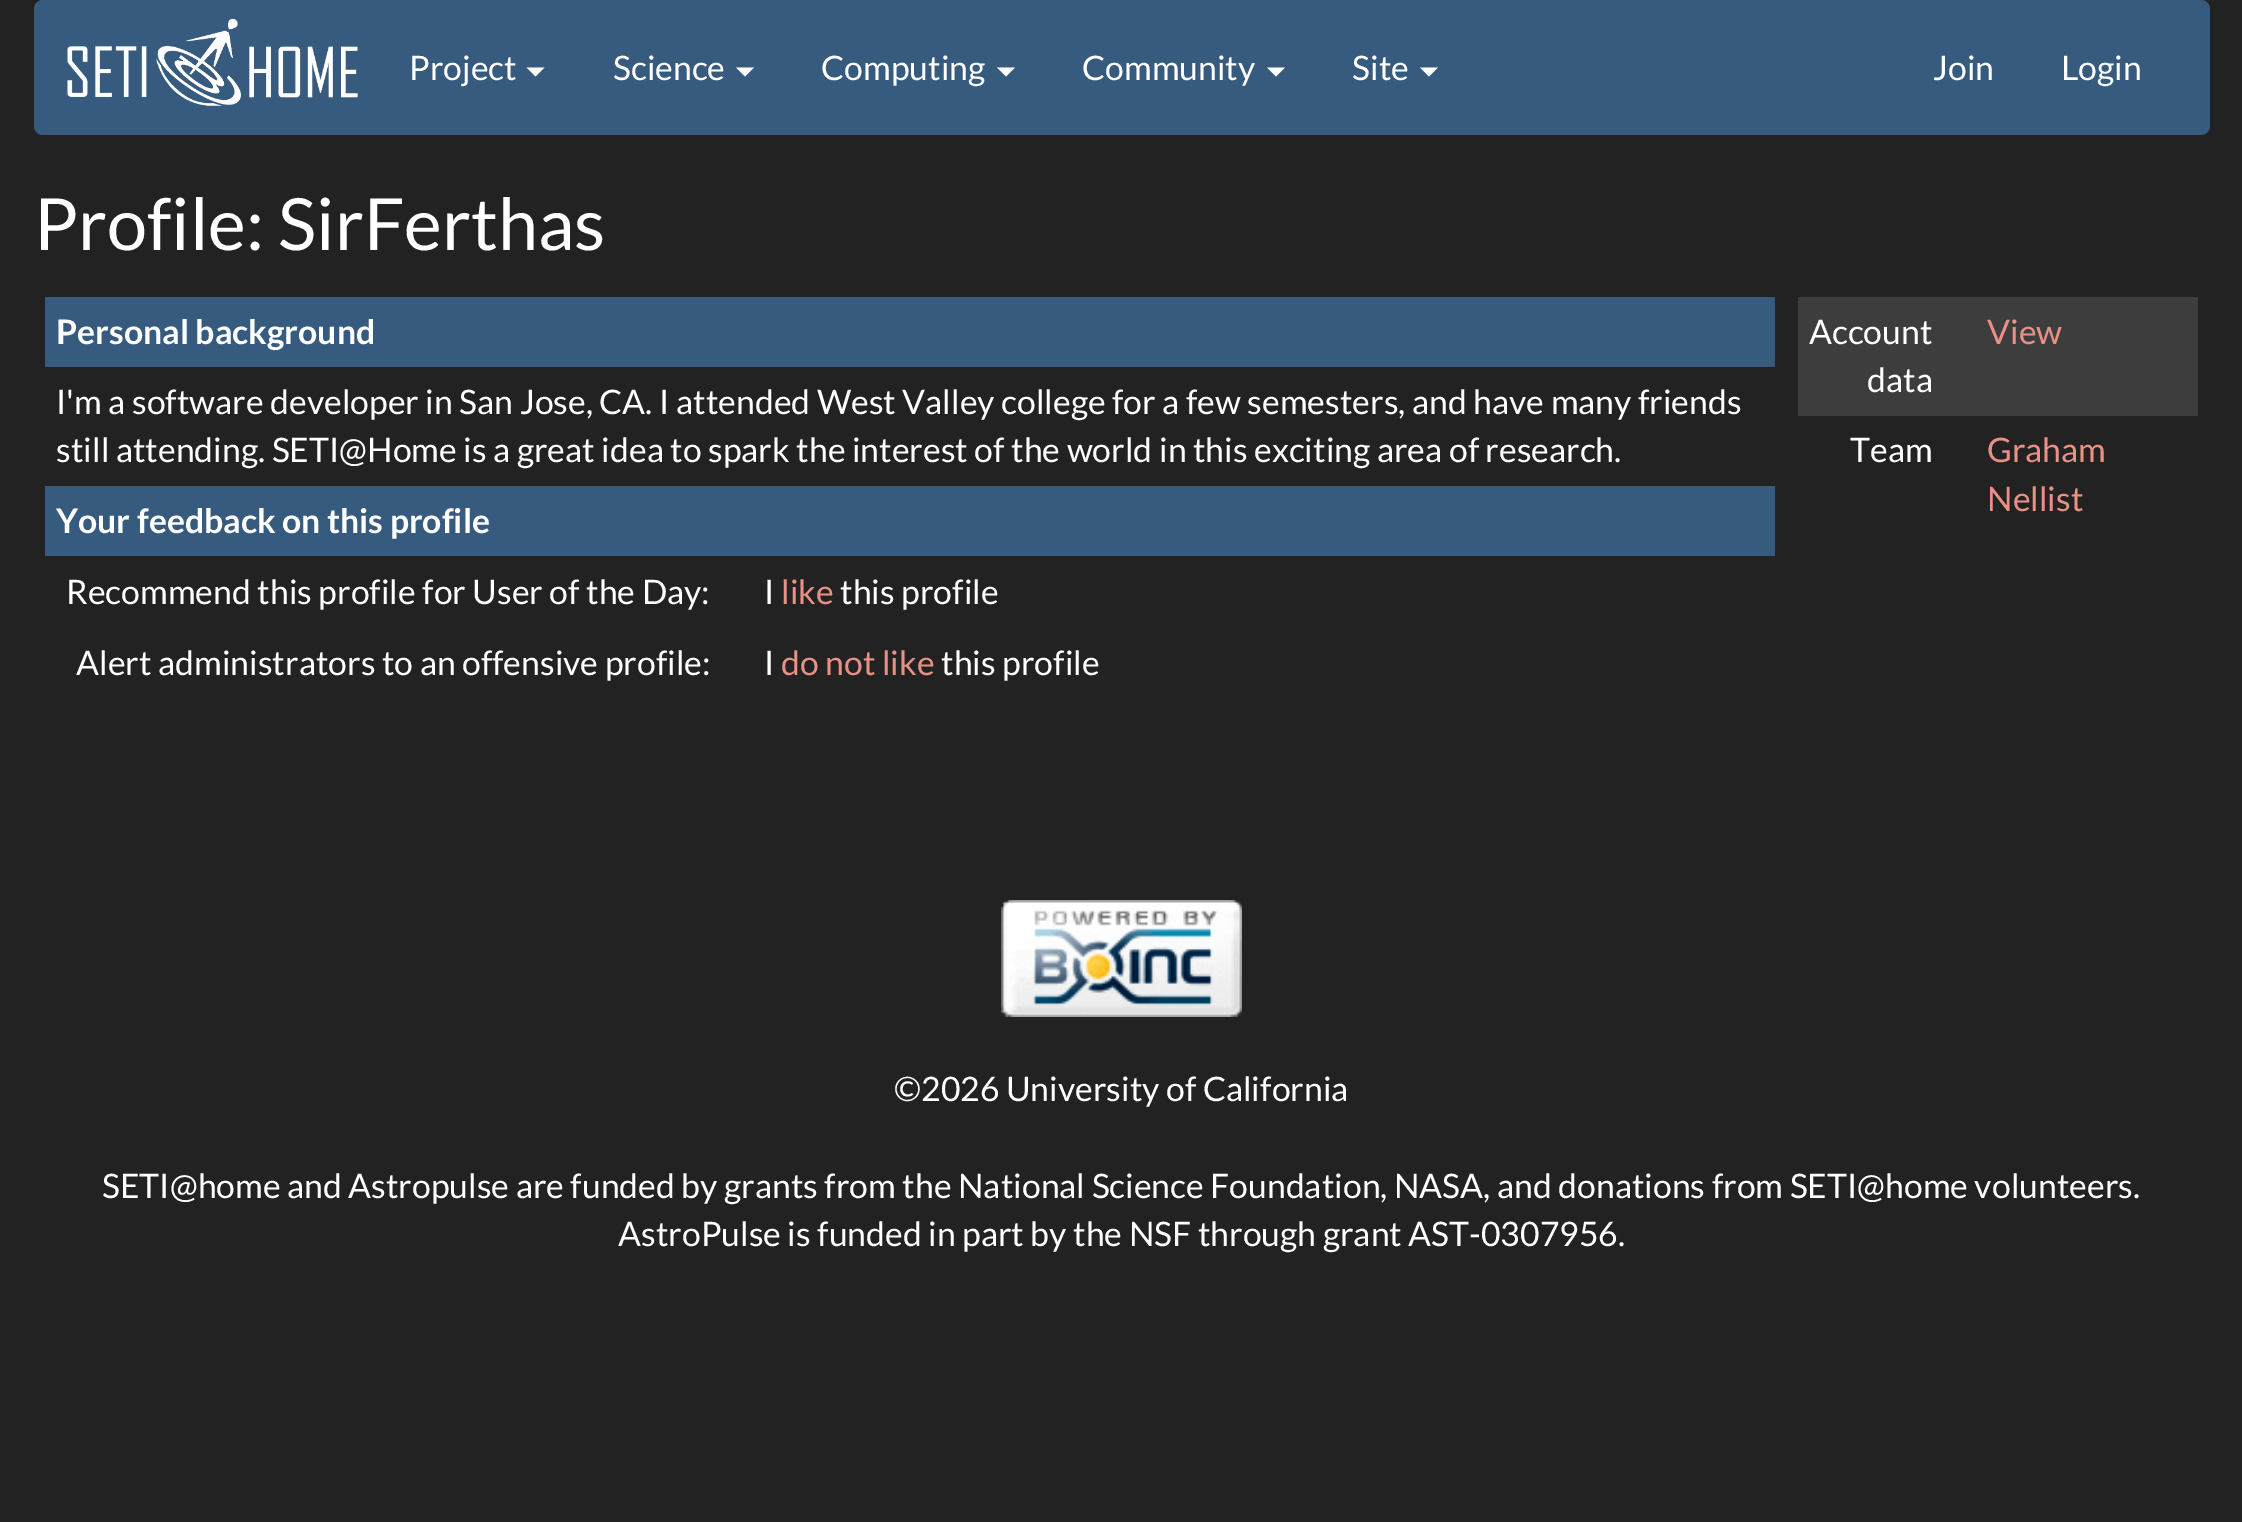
%!PS
<< /PageSize [2242 1522] >> setpagedevice
/mt/moveto load def
/li/lineto load def
/cp/closepath load def
/fl/fill load def
/co { dup -16 bitshift 255 div exch dup -8 bitshift 255 and 255 div exch 255 and 255 div setrgbcolor } def
/fn { [ exch dup neg 0 0 3 -1 roll 0 0 ] selectfont } def
/tx { co fn moveto show } def
/bx { co rectfill } def
/rr { 5 dict begin { /r /h /w /y /x } { exch def } forall
  x r add y moveto x w add y 2 copy h add r arct x w add y h add x 1 index r arct
  x y h add x y r arct x y 2 copy exch w add exch r arct closepath end } def
/im { 5 dict begin { /h /w /y /x /name } { exch def } forall
  gsave x y translate w h scale
  w h 8 [w 0 0 h 0 0] name (r) file false 3 colorimage grestore end } def
0 1522 translate 1 -1 scale
4 setmiterlimit
0 0 2242 1522 16#222222 bx
16#375A7F co
34 0 2176 135 9 rr fl
(media/1.raw) 67 18 291 88 im
16#FFFFFF co
526.5 67.5 mt 544.5 67.5 li 535.5 76.5 li cp fl
736 67.5 mt 754 67.5 li 745 76.5 li cp fl
997 67.5 mt 1015 67.5 li 1006 76.5 li cp fl
1267 67.5 mt 1285 67.5 li 1276 76.5 li cp fl
1420 67.5 mt 1438 67.5 li 1429 76.5 li cp fl
45 297 1730 70 16#375A7F bx
45 486 1730 70 16#375A7F bx
1798 297 400 119 16#3D3D3D bx
(media/2.raw) 1001 900 241 117 im
(Project) 409 80 /Lato-Regular 33.75 16#FFFFFF tx
(Science) 613 80 /Lato-Regular 33.75 16#FFFFFF tx
(Computing) 821 80 /Lato-Regular 33.75 16#FFFFFF tx
(Community) 1082 80 /Lato-Regular 33.75 16#FFFFFF tx
(Site) 1352 80 /Lato-Regular 33.75 16#FFFFFF tx
(Join) 1933 80 /Lato-Regular 33.75 16#FFFFFF tx
(Login) 2061 80 /Lato-Regular 33.75 16#FFFFFF tx
(Profile: SirFerthas) 34 250 /Lato-Regular 72 16#FFFFFF tx
(Personal background) 56 344 /Lato-Bold 33.75 16#FFFFFF tx
(I'm a software developer in San Jose, CA. I attended West Valley college for a few semesters, and have many friends) 56 414 /Lato-Regular 33.75 16#FFFFFF tx
(still attending. SETI@Home is a great idea to spark the interest of the world in this exciting area of research.) 56 462 /Lato-Regular 33.75 16#FFFFFF tx
(Your feedback on this profile) 56 533 /Lato-Bold 33.75 16#FFFFFF tx
(Recommend this profile for User of the Day:) 66 604 /Lato-Regular 33.75 16#FFFFFF tx
(I) 764 604 /Lato-Regular 33.75 16#FFFFFF tx
(like) 781 604 /Lato-Regular 33.75 16#EA9185 tx
(this profile) 840 604 /Lato-Regular 33.75 16#FFFFFF tx
(Alert administrators to an offensive profile:) 76 675 /Lato-Regular 33.75 16#FFFFFF tx
(I) 764 675 /Lato-Regular 33.75 16#FFFFFF tx
(do not like) 781 675 /Lato-Regular 33.75 16#EA9185 tx
(this profile) 941 675 /Lato-Regular 33.75 16#FFFFFF tx
(Account) 1809 344 /Lato-Regular 33.75 16#FFFFFF tx
(data) 1867 392 /Lato-Regular 33.75 16#FFFFFF tx
(View) 1987 344 /Lato-Regular 33.75 16#EA9185 tx
(Team) 1850 462 /Lato-Regular 33.75 16#FFFFFF tx
(Graham) 1987 462 /Lato-Regular 33.75 16#EA9185 tx
(Nellist) 1987 511 /Lato-Regular 33.75 16#EA9185 tx
(©2026 University of California) 894 1101 /Lato-Regular 33.75 16#FFFFFF tx
(SETI@home and Astropulse are funded by grants from the National Science Foundation, NASA, and donations from SETI@home volunteers.) 102 1198 /Lato-Regular 33.75 16#FFFFFF tx
(AstroPulse is funded in part by the NSF through grant AST-0307956.) 618 1246 /Lato-Regular 33.75 16#FFFFFF tx
showpage
